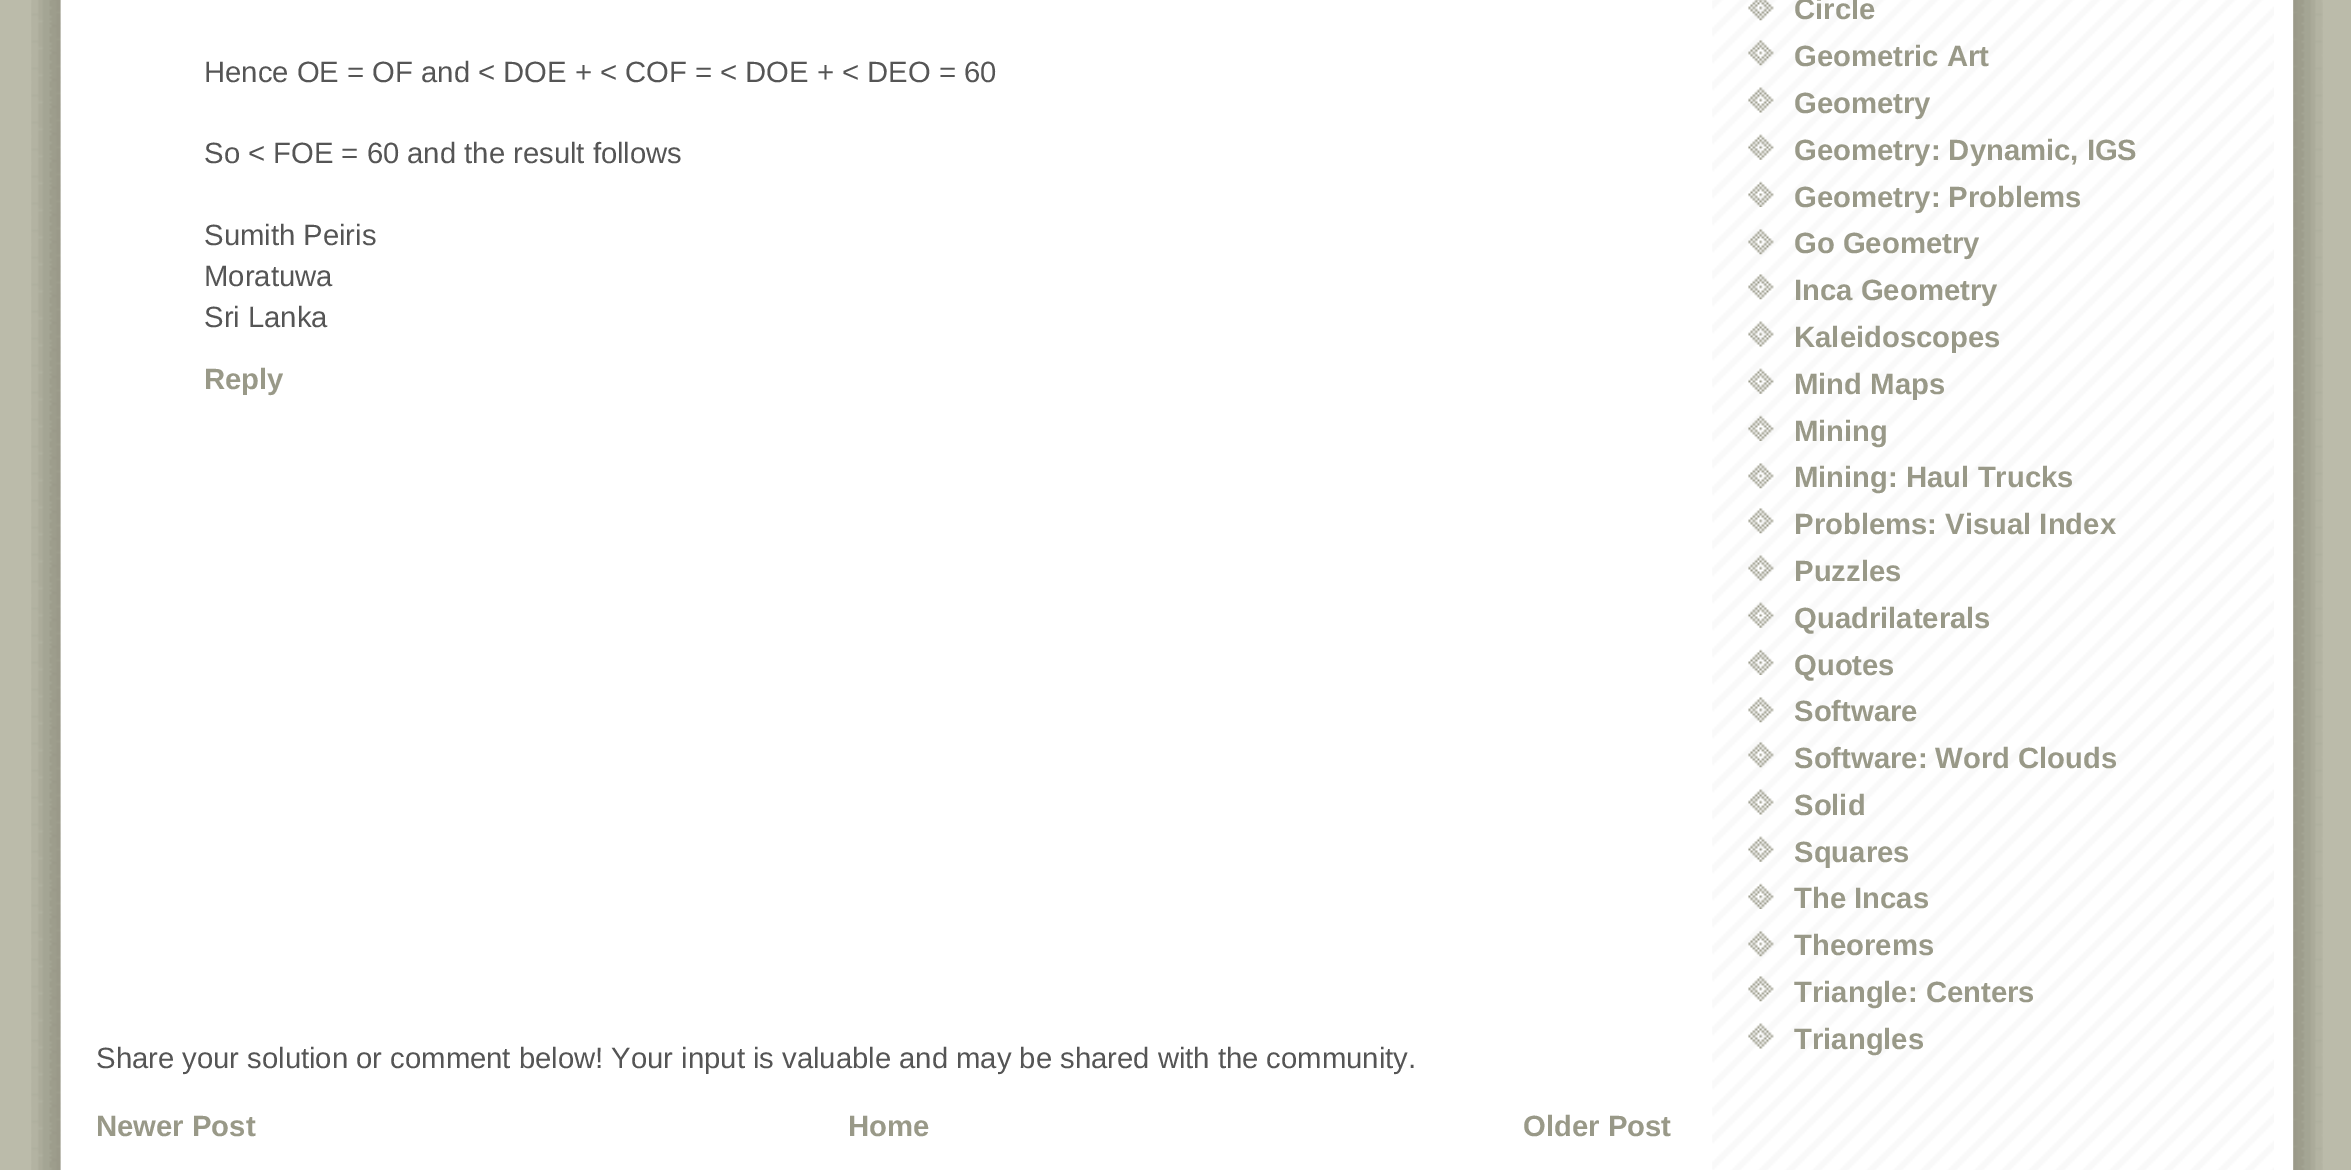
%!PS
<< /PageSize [2351 1170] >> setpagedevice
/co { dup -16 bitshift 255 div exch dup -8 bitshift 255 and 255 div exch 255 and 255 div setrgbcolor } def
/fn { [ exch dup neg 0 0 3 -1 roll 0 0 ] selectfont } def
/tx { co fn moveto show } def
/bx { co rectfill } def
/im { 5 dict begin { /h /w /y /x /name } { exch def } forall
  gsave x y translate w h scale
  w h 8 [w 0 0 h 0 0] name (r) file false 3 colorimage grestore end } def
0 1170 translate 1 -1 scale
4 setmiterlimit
0 0 2351 1170 16#BBBBAA bx
(media/1.raw) 31 0 2292 1170 im
61 0 2232 1170 16#FFFFFF bx
(media/2.raw) 1712 0 562 1170 im
(media/3.raw) 1748 0 26 21 im
(media/4.raw) 1748 40 26 26 im
(media/5.raw) 1748 87 26 26 im
(media/6.raw) 1748 134 26 26 im
(media/7.raw) 1748 181 26 26 im
(media/8.raw) 1748 229 26 26 im
(media/9.raw) 1748 274 26 26 im
(media/10.raw) 1748 321 26 26 im
(media/11.raw) 1748 368 26 26 im
(media/12.raw) 1748 415 26 26 im
(media/13.raw) 1748 463 26 26 im
(media/14.raw) 1748 508 26 26 im
(media/15.raw) 1748 555 26 26 im
(media/16.raw) 1748 602 26 26 im
(media/17.raw) 1748 649 26 26 im
(media/18.raw) 1748 697 26 26 im
(media/4.raw) 1748 742 26 26 im
(media/19.raw) 1748 789 26 26 im
(media/6.raw) 1748 836 26 26 im
(media/7.raw) 1748 883 26 26 im
(media/4.raw) 1748 931 26 26 im
(media/20.raw) 1748 976 26 26 im
(media/21.raw) 1748 1023 26 26 im
(Hence OE = OF and < DOE + < COF = < DOE + < DEO = 60) 204 82 /LiberationSans-Regular 29.25 16#555555 tx
(So < FOE = 60 and the result follows) 204 163 /LiberationSans-Regular 29.25 16#555555 tx
(Sumith Peiris) 204 245 /LiberationSans-Regular 29.25 16#555555 tx
(Moratuwa) 204 286 /LiberationSans-Regular 29.25 16#555555 tx
(Sri Lanka) 204 327 /LiberationSans-Regular 29.25 16#555555 tx
(Reply) 204 389 /LiberationSans-Bold 29.25 16#999988 tx
(Share your solution or comment below! Your input is valuable and may be shared with the community.) 96 1068 /LiberationSans-Regular 29.25 16#555555 tx
(Newer Post) 96 1136 /LiberationSans-Bold 29.25 16#999988 tx
(Home) 848 1136 /LiberationSans-Bold 29.25 16#999988 tx
(Older Post) 1523 1136 /LiberationSans-Bold 29.25 16#999988 tx
(Circle) 1794 19 /LiberationSans-Bold 29.25 16#999988 tx
(Geometric Art) 1794 66 /LiberationSans-Bold 29.25 16#999988 tx
(Geometry) 1794 113 /LiberationSans-Bold 29.25 16#999988 tx
(Geometry: Dynamic, IGS) 1794 160 /LiberationSans-Bold 29.25 16#999988 tx
(Geometry: Problems) 1794 207 /LiberationSans-Bold 29.25 16#999988 tx
(Go Geometry) 1794 253 /LiberationSans-Bold 29.25 16#999988 tx
(Inca Geometry) 1794 300 /LiberationSans-Bold 29.25 16#999988 tx
(Kaleidoscopes) 1794 347 /LiberationSans-Bold 29.25 16#999988 tx
(Mind Maps) 1794 394 /LiberationSans-Bold 29.25 16#999988 tx
(Mining) 1794 441 /LiberationSans-Bold 29.25 16#999988 tx
(Mining: Haul Trucks) 1794 487 /LiberationSans-Bold 29.25 16#999988 tx
(Problems: Visual Index) 1794 534 /LiberationSans-Bold 29.25 16#999988 tx
(Puzzles) 1794 581 /LiberationSans-Bold 29.25 16#999988 tx
(Quadrilaterals) 1794 628 /LiberationSans-Bold 29.25 16#999988 tx
(Quotes) 1794 675 /LiberationSans-Bold 29.25 16#999988 tx
(Software) 1794 721 /LiberationSans-Bold 29.25 16#999988 tx
(Software: Word Clouds) 1794 768 /LiberationSans-Bold 29.25 16#999988 tx
(Solid) 1794 815 /LiberationSans-Bold 29.25 16#999988 tx
(Squares) 1794 862 /LiberationSans-Bold 29.25 16#999988 tx
(The Incas) 1794 908 /LiberationSans-Bold 29.25 16#999988 tx
(Theorems) 1794 955 /LiberationSans-Bold 29.25 16#999988 tx
(Triangle: Centers) 1794 1002 /LiberationSans-Bold 29.25 16#999988 tx
(Triangles) 1794 1049 /LiberationSans-Bold 29.25 16#999988 tx
showpage
